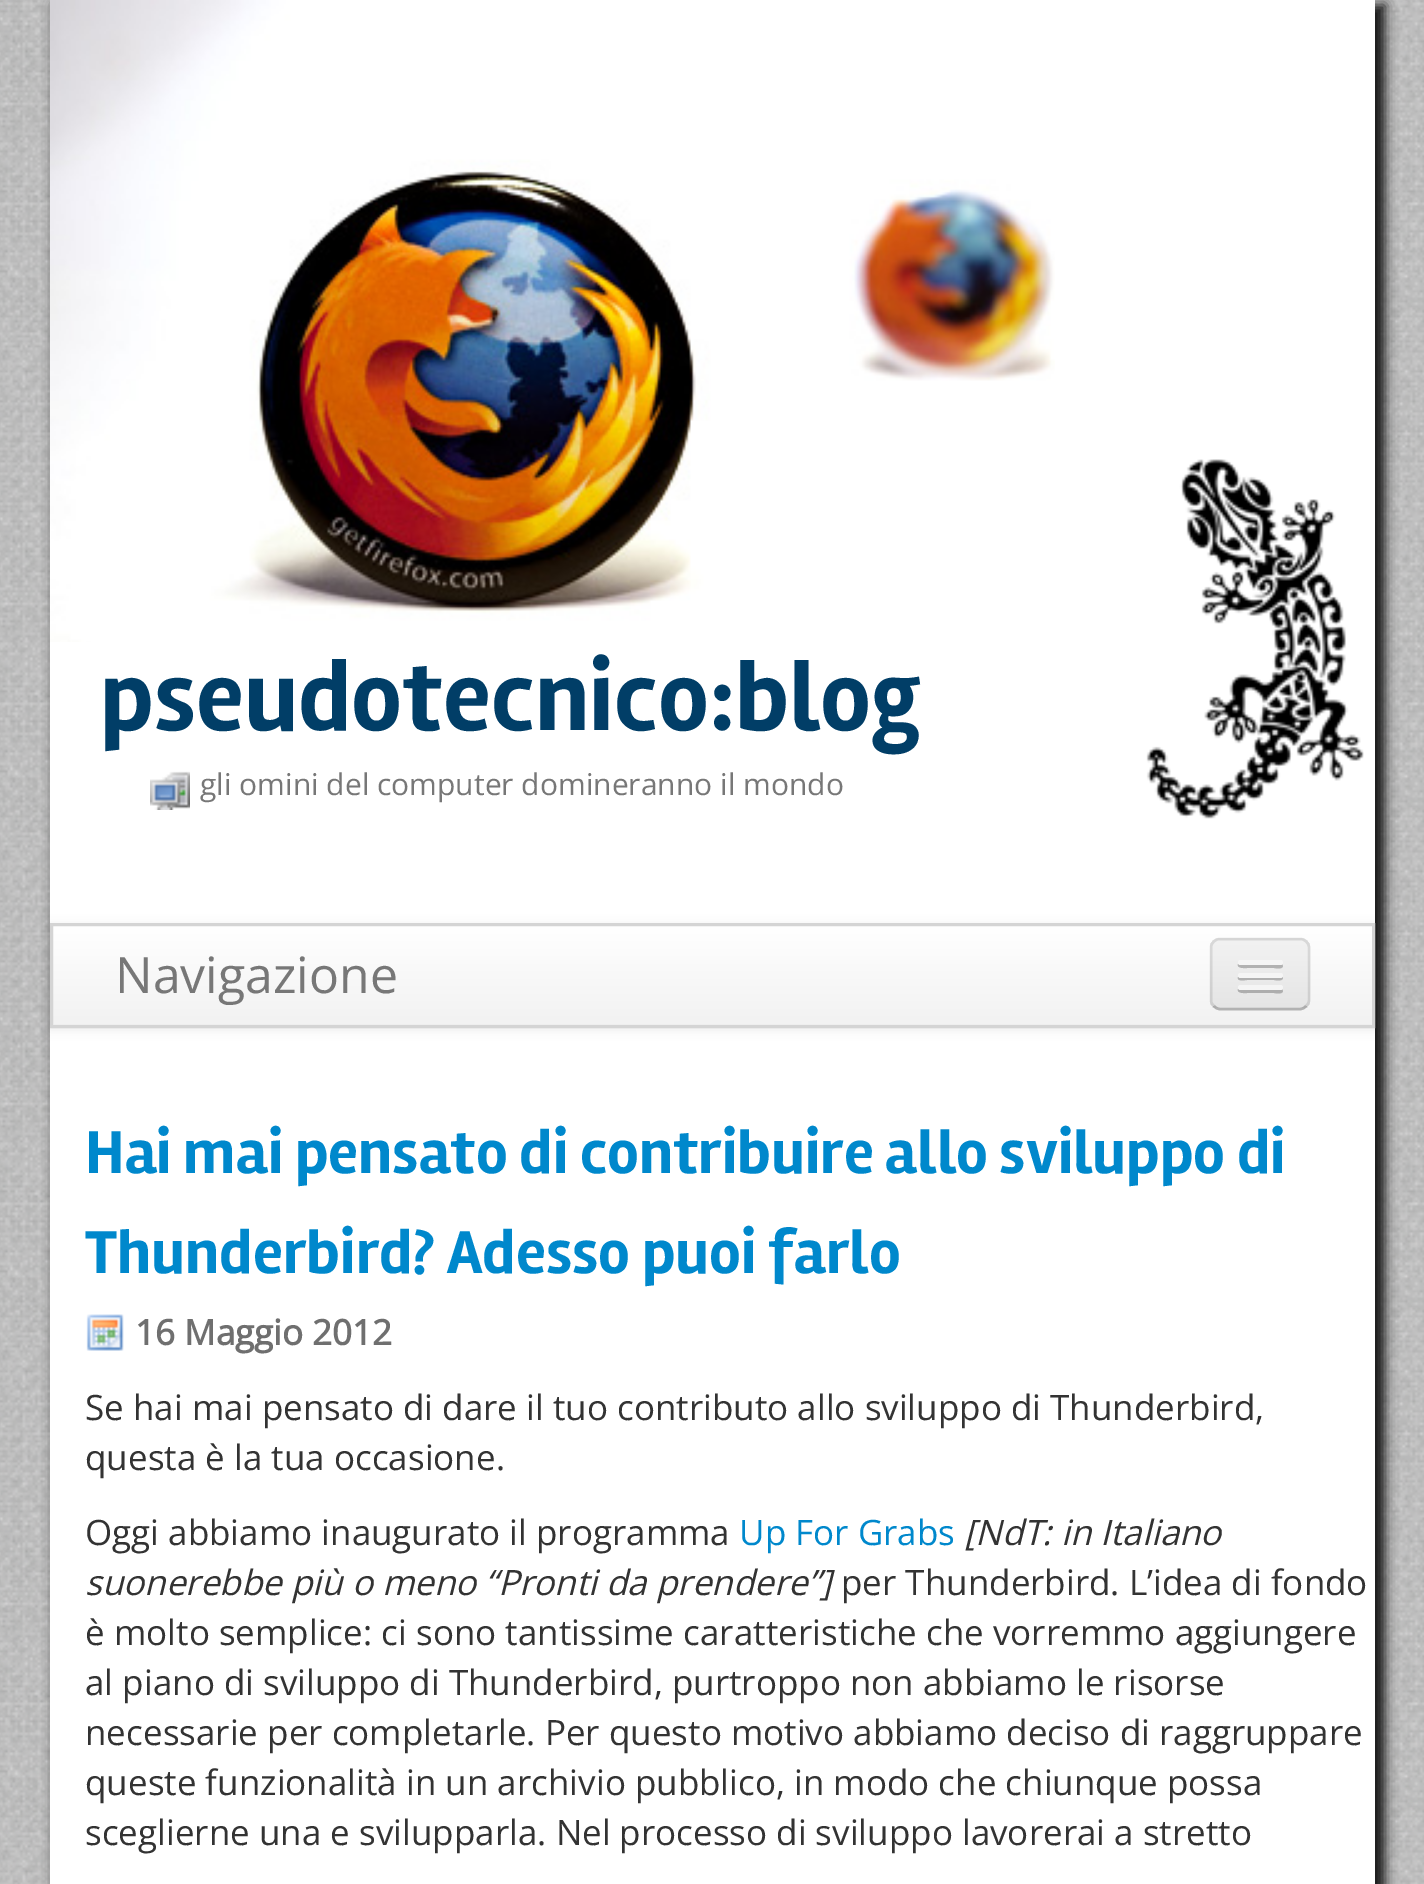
%!PS
<< /PageSize [1424 1884] /PageUsesTransparency true >> setpagedevice
/mt/moveto load def
/li/lineto load def
/ct/curveto load def
/cp/closepath load def
/fl/fill load def
/st/stroke load def
/gs/gsave load def
/gr/grestore load def
/lw/setlinewidth load def
/co { dup -16 bitshift 255 div exch dup -8 bitshift 255 and 255 div exch 255 and 255 div setrgbcolor } def
/fn { [ exch dup neg 0 0 3 -1 roll 0 0 ] selectfont } def
/tx { co fn moveto show } def
/bx { co rectfill } def
/al { dup .setfillconstantalpha .setstrokeconstantalpha } def
/rr { 5 dict begin { /r /h /w /y /x } { exch def } forall
  x r add y moveto x w add y 2 copy h add r arct x w add y h add x 1 index r arct
  x y h add x y r arct x y 2 copy exch w add exch r arct closepath end } def
/sh { 12 dict begin { /a /b /q /h /w /y /x } { exch def } forall gsave /was 0 def
  9 -2 -9 { dup b mul 4 div /e exch def 1 sub .425 mul 2.718 exch exp 1 add a .99 .min exch div /now exch def
    1 1 now sub 1 was sub div sub al /was now def
    w h .min e 2 mul add 0 gt { x e sub y e sub w e 2 mul add h e 2 mul add
      q e add b .6 mul add w h .min 2 div e add .min 0 .max rr fill } if } for grestore end } def
/im { 5 dict begin { /h /w /y /x /name } { exch def } forall
  gsave x y translate w h scale
  w h 8 [w 0 0 h 0 0] name (r) file false 3 colorimage grestore end } def
0 .pushpdf14devicefilter
0 1884 translate 1 -1 scale
4 setmiterlimit
0 0 1424 1884 16#FFFFFF bx
(media/1.raw) 0 0 1424 1884 im
16#111111 co
55 5 1330 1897 0 6 1 sh
50 0 1325 1884 16#FFFFFF bx
(media/2.raw) 50 0 1005 642 im
(media/3.raw) 1146 459 218 360 im
(media/4.raw) 150 771 40 39 im
16#000000 co
50 925 1325 105 0 5 .07 sh
gs 53 926 mt 1372 926 li 1372 1024 li 53 1024 li cp clip newpath
<< /ShadingType 2 /ColorSpace /DeviceRGB /Coords [713 925 713 1025] /Extend [true true] /Function << /FunctionType 2 /Domain [0 1] /C0 [1 1 1] /C1 [.949 .949 .949] /N 1 >> >> shfill gr
16#D4D4D4 co
3 lw
51.5 924.5 1322 102 rectstroke
16#EDEDED co
1210 938 100 72 10 rr fl
gs
1210 938 100 72 10 rr clip newpath
gs 1210 940 mt 1310 940 li 1310 1008 li 1210 1008 li cp clip newpath
<< /ShadingType 2 /ColorSpace /DeviceRGB /Coords [1260 940 1260 1008] /Extend [true true] /Function << /FunctionType 2 /Domain [0 1] /C0 [.949 .949 .949] /C1 [.898 .898 .898] /N 1 >> >> shfill gr
gr
0.25 al
16#000000 co
2.5 lw
1306 1006 mt 1304.5 1008 1302.5 1009 1300 1009 ct 1220 1009 li 1217.5 1009 1215.5 1008 1214 1006 ct st
0.1 al
1214 1006 mt 1212 1004.5 1211 1002.5 1211 1000 ct 1211 947.5 li 1211 945 1212 943 1214 941.5 ct 1215.5 939.5 1217.5 939 1220 939 ct 1300 939 li 1302.5 939 1304.5 939.5 1306 941.5 ct 1308 943 1309 945 1309 947.5 ct 1309 1000 li 1309 1002.5 1308 1004.5 1306 1006 ct st
1 al
16#B2B2B2 co
1238 964 mt 1236 969 1247 968 1247 968 ct 1274 968 li 1275 968 1282 970 1283 966 ct 1282 964 li 1280 965 li 1277 965 1240 966 1238 964 ct cp fl
16#F5F5F5 co
1238 960 45 5 2.5 rr fl
16#B0B0B0 co
1238 977 mt 1236 982 1246 980 1247 980 ct 1274 980 li 1275 980 1282 982 1283 978 ct 1282 976 li 1280 977 li 1240 977 li cp fl
16#F5F5F5 co
1238 973 45 5 2.5 rr fl
16#AEAEAE co
1238 989 mt 1236 994 1247 993 1247 993 ct 1274 993 li 1275 993 1282 995 1283 991 ct 1282 989 li 1280 990 li 1277 990 1240 991 1238 989 ct cp fl
16#F5F5F5 co
1238 985 45 5 2.5 rr fl
(media/5.raw) 86 1314 38 37 im
(pseudotecnico:blog) 100 730 /Rambla-Bold 100 16#013E67 tx
(gli omini del computer domineranno il mondo) 200 795 /OpenSans-Regular 30 16#777777 tx
(Navigazione) 115 993 /OpenSans-Regular 50 16#777777 tx
(Hai mai pensato di contribuire allo sviluppo di) 85 1173 /Rambla-Bold 62.5 16#0088CC tx
(Thunderbird? Adesso puoi farlo) 85 1273 /Rambla-Bold 62.5 16#0088CC tx
(16 Maggio 2012) 135 1345 /OpenSans-Bold 35 16#6F6F6F tx
(Se hai mai pensato di dare il tuo contributo allo sviluppo di Thunderbird,) 85 1420 /OpenSans-Regular 35 16#333333 tx
(questa è la tua occasione.) 85 1470 /OpenSans-Regular 35 16#333333 tx
(Oggi abbiamo inaugurato il programma) 85 1545 /OpenSans-Regular 35 16#333333 tx
(Up For Grabs) 739 1545 /OpenSans-Regular 35 16#0088CC tx
([NdT: in Italiano) 964 1545 /OpenSans-Italic 35 16#333333 tx
(suonerebbe più o meno “Pronti da prendere”]) 85 1595 /OpenSans-Italic 35 16#333333 tx
(per Thunderbird. L’idea di fondo) 841 1595 /OpenSans-Regular 35 16#333333 tx
(è molto semplice: ci sono tantissime caratteristiche che vorremmo aggiungere) 85 1645 /OpenSans-Regular 35 16#333333 tx
(al piano di sviluppo di Thunderbird, purtroppo non abbiamo le risorse) 85 1695 /OpenSans-Regular 35 16#333333 tx
(necessarie per completarle. Per questo motivo abbiamo deciso di raggruppare) 85 1745 /OpenSans-Regular 35 16#333333 tx
(queste funzionalità in un archivio pubblico, in modo che chiunque possa) 85 1795 /OpenSans-Regular 35 16#333333 tx
(sceglierne una e svilupparla. Nel processo di sviluppo lavorerai a stretto) 85 1845 /OpenSans-Regular 35 16#333333 tx
.poppdf14devicefilter showpage
